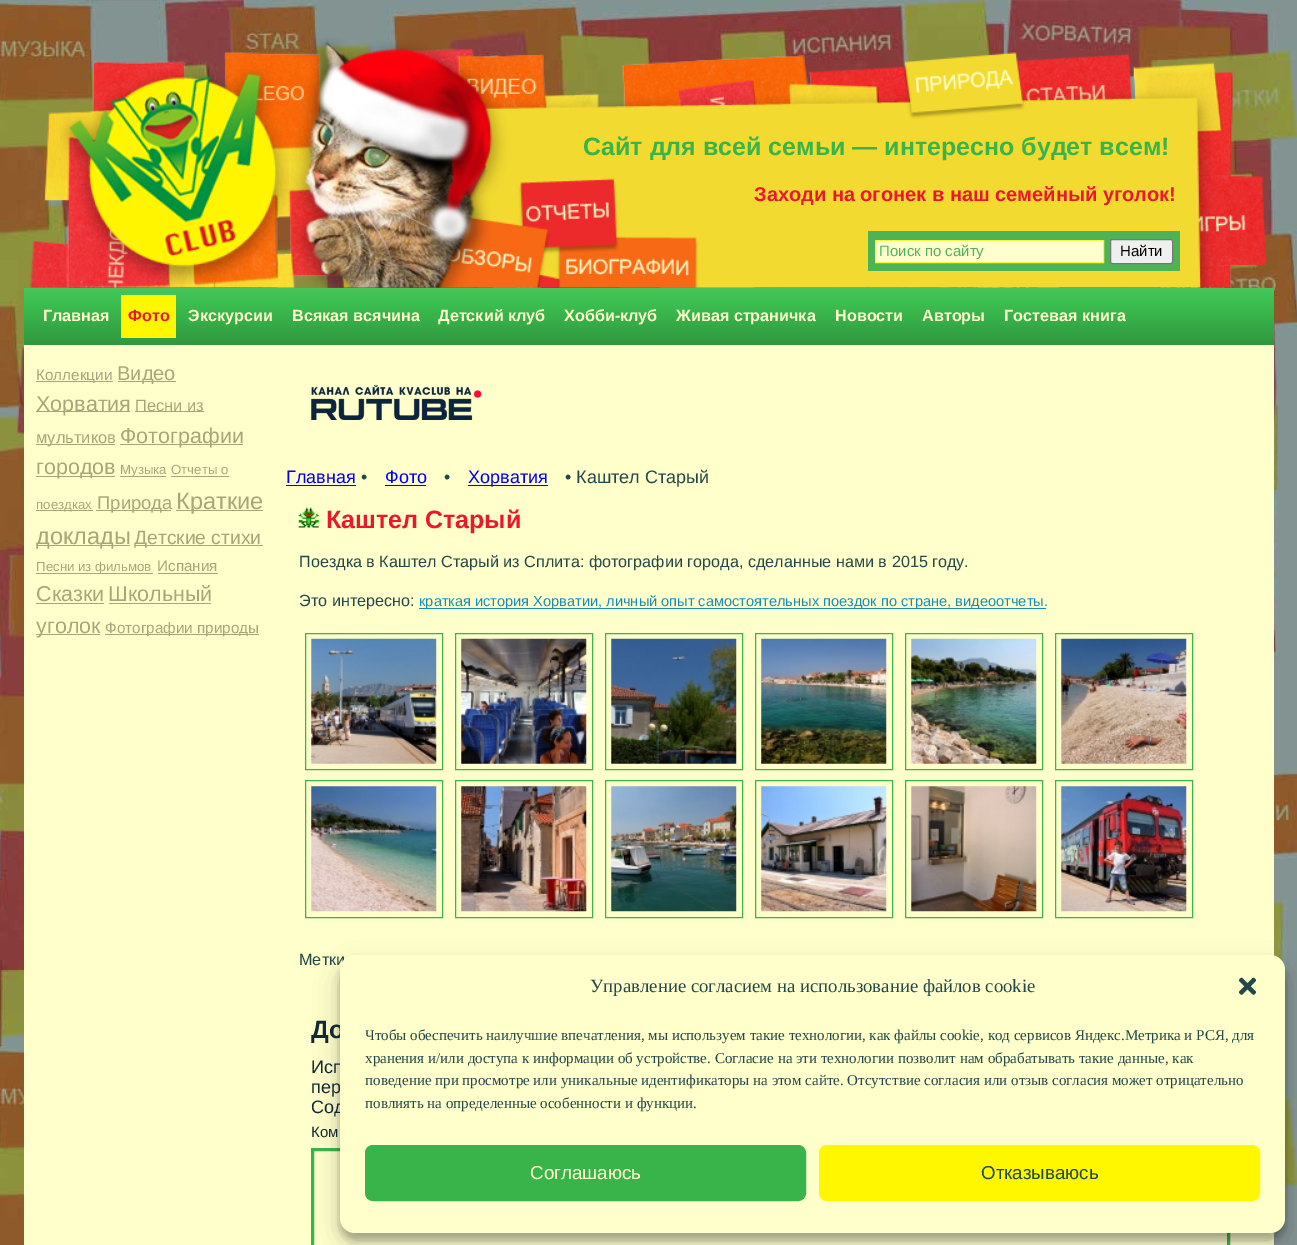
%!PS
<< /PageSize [1297 1245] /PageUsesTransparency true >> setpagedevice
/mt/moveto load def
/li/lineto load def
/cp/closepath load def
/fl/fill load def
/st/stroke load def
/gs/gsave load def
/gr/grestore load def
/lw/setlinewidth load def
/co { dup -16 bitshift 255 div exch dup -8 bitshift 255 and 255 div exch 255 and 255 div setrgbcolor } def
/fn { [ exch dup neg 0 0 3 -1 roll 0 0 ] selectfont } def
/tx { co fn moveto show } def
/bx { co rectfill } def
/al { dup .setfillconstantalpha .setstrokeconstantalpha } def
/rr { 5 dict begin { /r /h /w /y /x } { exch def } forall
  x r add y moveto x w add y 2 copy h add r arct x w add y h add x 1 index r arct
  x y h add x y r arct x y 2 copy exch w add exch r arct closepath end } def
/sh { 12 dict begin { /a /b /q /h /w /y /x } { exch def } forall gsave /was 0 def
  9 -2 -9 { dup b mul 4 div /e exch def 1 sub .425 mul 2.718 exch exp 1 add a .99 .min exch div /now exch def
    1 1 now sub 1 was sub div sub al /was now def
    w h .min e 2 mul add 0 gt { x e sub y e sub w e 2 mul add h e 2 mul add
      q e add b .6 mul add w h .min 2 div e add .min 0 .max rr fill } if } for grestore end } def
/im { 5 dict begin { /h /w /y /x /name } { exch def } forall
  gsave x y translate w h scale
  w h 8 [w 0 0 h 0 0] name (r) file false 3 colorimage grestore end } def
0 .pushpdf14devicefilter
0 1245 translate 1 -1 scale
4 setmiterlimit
0 0 1297 1245 16#FFFFFF bx
(media/1.raw) 0 0 1297 1245 im
(media/2.raw) 30 38 1238 250 im
(media/3.raw) 60 69 229 215 im
868 231 312 40 16#4EB354 bx
16#FFFECF co
875.5 240.5 mt 1103.5 240.5 li 1103.5 262.5 li 875.5 262.5 li cp gs fl gr
16#FEF63E co
st
16#EFEFEF co
1110.5 239.5 62 24 2 rr gs fl gr
16#767676 co
st
gs 24 288 mt 1274 288 li 1274 345 li 24 345 li cp clip newpath
<< /ShadingType 2 /ColorSpace /DeviceRGB /Coords [649 287 649 345] /Extend [true true] /Function << /FunctionType 3 /Domain [0 1] /Functions [<< /FunctionType 2 /Domain [0 1] /C0 [.286 .773 .361] /C1 [.239 .761 .318] /N 1 >> << /FunctionType 2 /Domain [0 1] /C0 [.239 .761 .318] /C1 [.188 .592 .247] /N 1 >>] /Bounds [.21] /Encode [0 1 0 1] >> >> shfill gr
121 295 55 43 16#FFF700 bx
24 345 1250 900 16#FFFFCC bx
36 381 77 1 16#A6A67C bx
118 381 58 1 16#A6A67C bx
36 411 94 1 16#A6A67C bx
135 411 69 1 16#A6A67C bx
36 444 79 1 16#A6A67C bx
120 444 123 1 16#A6A67C bx
36 476 79 1 16#A6A67C bx
120 476 46 1 16#A6A67C bx
171 476 58 1 16#A6A67C bx
36 510 57 1 16#A6A67C bx
96 510 75 1 16#A6A67C bx
176 510 87 1 16#A6A67C bx
36 545 94 1 16#A6A67C bx
135 545 128 1 16#A6A67C bx
36 573 117 1 16#A6A67C bx
158 573 60 1 16#A6A67C bx
36 603 68 1 16#A6A67C bx
109 603 102 1 16#A6A67C bx
36 634 64 1 16#A6A67C bx
105 634 154 1 16#A6A67C bx
(media/4.raw) 311 385 171 35 im
286 485 70 1 16#0000EE bx
385 485 41 1 16#0000EE bx
468 485 80 1 16#0000EE bx
(media/5.raw) 298 507 21 21 im
419 608 627 1 16#158EB7 bx
16#39B44B co
305.5 633.5 137 136 rectstroke
(media/6.raw) 311 638 126 126 im
455.5 633.5 137 136 rectstroke
(media/7.raw) 461 638 126 126 im
605.5 633.5 137 136 rectstroke
(media/8.raw) 611 638 126 126 im
755.5 633.5 137 136 rectstroke
(media/9.raw) 761 638 126 126 im
905.5 633.5 137 136 rectstroke
(media/10.raw) 911 638 126 126 im
1055.5 633.5 137 136 rectstroke
(media/11.raw) 1061 638 126 126 im
305.5 780.5 137 137 rectstroke
(media/12.raw) 311 786 126 126 im
455.5 780.5 137 137 rectstroke
(media/13.raw) 461 786 126 126 im
605.5 780.5 137 137 rectstroke
(media/14.raw) 611 786 126 126 im
755.5 780.5 137 137 rectstroke
(media/15.raw) 761 786 126 126 im
905.5 780.5 137 137 rectstroke
(media/16.raw) 911 786 126 126 im
1055.5 780.5 137 137 rectstroke
(media/17.raw) 1061 786 126 126 im
3 lw
312.5 1149.5 916 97 rectstroke
16#000000 co
340 963 945 277 15 4 .23 sh
340 968 945 277 15 12.5 .19 sh
(Сайт для всей семьи — интересно будет всем!) 583 155 /LiberationSans-Bold 25 16#39B44B tx
(Заходи на огонек в наш семейный уголок!) 754 201 /LiberationSans-Bold 20 16#EC182A tx
(Поиск по сайту) 879 256 /LiberationSans-Regular 15 16#4EB354 tx
(Найти) 1120 256 /LiberationSans-Regular 15 16#000000 tx
(Главная) 43 321 /LiberationSans-Bold 16.2 16#FFFFCC tx
(Фото) 128 321 /LiberationSans-Bold 16.2 16#EC182A tx
(Экскурсии) 188 321 /LiberationSans-Bold 16.2 16#FFFFCC tx
(Всякая всячина) 292 321 /LiberationSans-Bold 16.2 16#FFFFCC tx
(Детский клуб) 438 321 /LiberationSans-Bold 16.2 16#FFFFCC tx
(Хобби-клуб) 564 321 /LiberationSans-Bold 16.2 16#FFFFCC tx
(Живая страничка) 676 321 /LiberationSans-Bold 16.2 16#FFFFCC tx
(Новости) 835 321 /LiberationSans-Bold 16.2 16#FFFFCC tx
(Авторы) 922 321 /LiberationSans-Bold 16.2 16#FFFFCC tx
(Гостевая книга) 1004 321 /LiberationSans-Bold 16.2 16#FFFFCC tx
(Коллекции) 36 380 /LiberationSans-Regular 15.25 16#A6A67C tx
(Видео) 117 380 /LiberationSans-Regular 20 16#A6A67C tx
(Хорватия) 36 411 /LiberationSans-Regular 21.5 16#A6A67C tx
(Песни из) 135 411 /LiberationSans-Regular 16.5 16#A6A67C tx
(мультиков) 36 443 /LiberationSans-Regular 16.5 16#A6A67C tx
(Фотографии) 120 443 /LiberationSans-Regular 21.5 16#A6A67C tx
(городов) 36 474 /LiberationSans-Regular 21.5 16#A6A67C tx
(Музыка) 120 474 /LiberationSans-Regular 13.25 16#A6A67C tx
(Отчеты о) 171 474 /LiberationSans-Regular 13.25 16#A6A67C tx
(поездках) 36 509 /LiberationSans-Regular 13.25 16#A6A67C tx
(Природа) 97 509 /LiberationSans-Regular 18.5 16#A6A67C tx
(Краткие) 176 509 /LiberationSans-Regular 23.5 16#A6A67C tx
(доклады) 36 544 /LiberationSans-Regular 23.5 16#A6A67C tx
(Детские стихи) 134 544 /LiberationSans-Regular 19.25 16#A6A67C tx
(Песни из фильмов) 36 571 /LiberationSans-Regular 13.25 16#A6A67C tx
(Испания) 157 571 /LiberationSans-Regular 15.25 16#A6A67C tx
(Сказки) 36 601 /LiberationSans-Regular 21.5 16#A6A67C tx
(Школьный) 108 601 /LiberationSans-Regular 21.5 16#A6A67C tx
(уголок) 36 633 /LiberationSans-Regular 21.5 16#A6A67C tx
(Фотографии природы) 105 633 /LiberationSans-Regular 15.25 16#A6A67C tx
(Главная) 286 483 /LiberationSans-Regular 18 16#0000EE tx
(•) 361 483 /LiberationSans-Regular 18 16#234848 tx
(Фото) 385 483 /LiberationSans-Regular 18 16#0000EE tx
(•) 444 483 /LiberationSans-Regular 18 16#234848 tx
(Хорватия) 468 483 /LiberationSans-Regular 18 16#0000EE tx
(• Каштел Старый) 565 483 /LiberationSans-Regular 18 16#234848 tx
(Каштел Старый) 326 528 /LiberationSans-Bold 25 16#EC182A tx
(Поездка в Каштел Старый из Сплита: фотографии города, сделанные нами в 2015 году.) 299 567 /LiberationSans-Regular 16.2 16#234848 tx
(Это интересно:) 299 606 /LiberationSans-Regular 16.2 16#234848 tx
(краткая история Хорватии, личный опыт самостоятельных поездок по стране, видеоотчеты.) 419 606 /LiberationSans-Regular 14.6 16#158EB7 tx
(Метки) 299 965 /LiberationSans-Regular 16.2 16#234848 tx
(До) 311 1038 /LiberationSans-Bold 25 16#132834 tx
(Исп) 311 1073 /LiberationSans-Regular 18 16#132834 tx
(пер) 311 1093 /LiberationSans-Regular 18 16#132834 tx
(Сод) 311 1113 /LiberationSans-Regular 18 16#132834 tx
(Ком) 311 1137 /LiberationSans-Regular 15 16#132834 tx
16#FFFFCC co
340 955 945 278 15 rr fl
(Управление согласием на использование файлов cookie) 590 992 /LiberationSerif-Regular 18.75 16#234848 tx
(media/18.raw) 1238 977 19 18 im
(Чтобы обеспечить наилучшие впечатления, мы используем такие технологии, как файлы cookie, код сервисов Яндекс.Метрика и РСЯ, для) 365 1040 /LiberationSerif-Regular 15 16#234848 tx
(хранения и/или доступа к информации об устройстве. Согласие на эти технологии позволит нам обрабатывать такие данные, как) 365 1063 /LiberationSerif-Regular 15 16#234848 tx
(поведение при просмотре или уникальные идентификаторы на этом сайте. Отсутствие согласия или отзыв согласия может отрицательно) 365 1085 /LiberationSerif-Regular 15 16#234848 tx
(повлиять на определенные особенности и функции.) 365 1108 /LiberationSerif-Regular 15 16#234848 tx
16#39B44B co
365.5 1145.5 440 55 7.5 rr gs fl gr
1 lw
st
(Соглашаюсь) 530 1179 /LiberationSans-Regular 18.75 16#FFFFCC tx
16#FFF700 co
819.5 1145.5 440 55 7.5 rr gs fl gr
st
(Отказываюсь) 981 1179 /LiberationSans-Regular 18.75 16#234848 tx
.poppdf14devicefilter showpage
